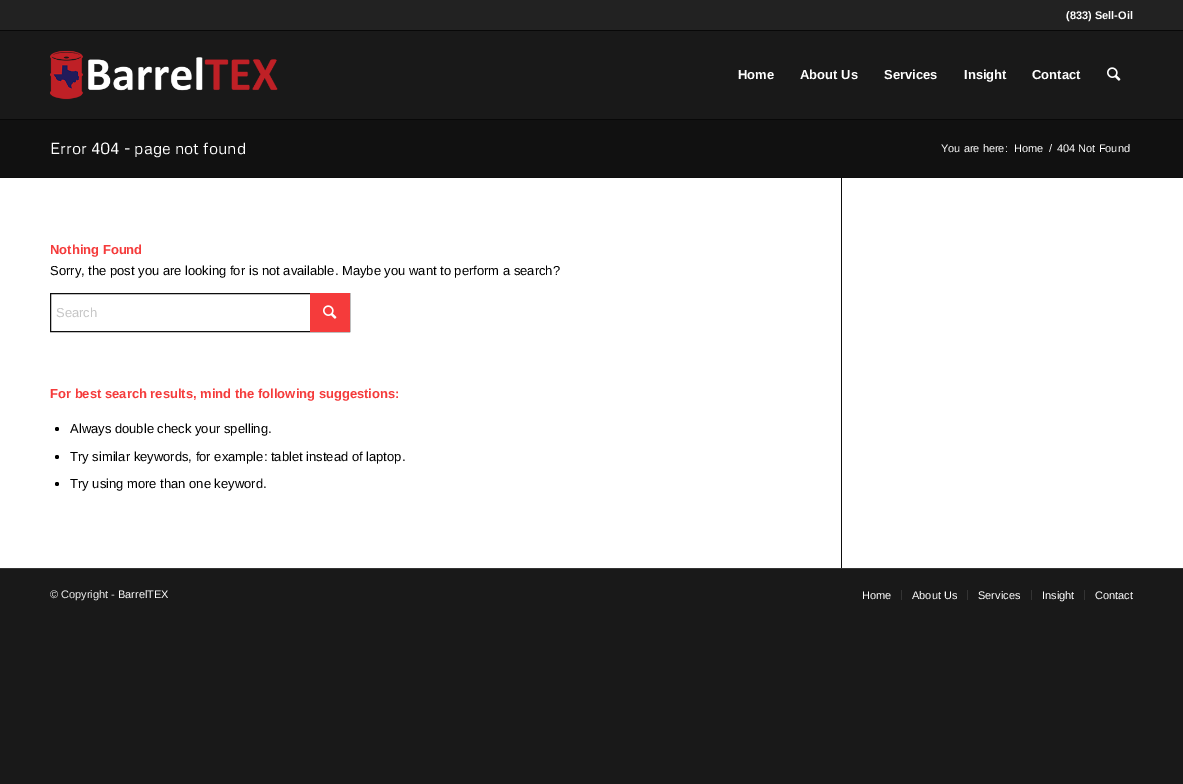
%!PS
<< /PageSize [1183 784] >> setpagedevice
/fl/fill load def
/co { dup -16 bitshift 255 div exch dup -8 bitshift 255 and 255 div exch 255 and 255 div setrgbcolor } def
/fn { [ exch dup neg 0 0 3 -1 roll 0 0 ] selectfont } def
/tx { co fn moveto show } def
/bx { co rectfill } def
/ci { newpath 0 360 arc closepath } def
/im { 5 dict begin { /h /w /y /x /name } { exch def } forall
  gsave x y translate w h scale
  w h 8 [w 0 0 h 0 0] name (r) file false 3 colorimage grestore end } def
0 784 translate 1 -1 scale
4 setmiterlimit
0 0 1183 784 16#191919 bx
0 0 1183 30 16#222222 bx
0 30 1183 1 16#080808 bx
0 119 1183 1 16#080808 bx
(media/1.raw) 50 50 228 50 im
(media/2.raw) 1107 67 14 14 im
0 120 1183 57 16#111111 bx
0 178 1183 390 16#FFFFFF bx
0 177 1183 1 16#0D0D0D bx
841 178 1 390 16#0D0D0D bx
50.5 293.5 299 38 rectstroke
310 293 40 39 16#F53B3B bx
(media/3.raw) 323 305 14 14 im
16#000000 co
57 429 2 ci fl
57 457 2 ci fl
57 484 2 ci fl
0 568 1183 1 16#333333 bx
901 590 1 10 16#333333 bx
967 590 1 10 16#333333 bx
1031 590 1 10 16#333333 bx
1084 590 1 10 16#333333 bx
(\(833\) Sell-Oil) 1066 19 /LiberationSans-Bold 11 16#FFFFFF tx
(Home) 738 79 /LiberationSans-Bold 13 16#FFFFFF tx
(About Us) 800 79 /LiberationSans-Bold 13 16#FFFFFF tx
(Services) 884 79 /LiberationSans-Bold 13 16#FFFFFF tx
(Insight) 964 79 /LiberationSans-Bold 13 16#FFFFFF tx
(Contact) 1032 79 /LiberationSans-Bold 13 16#FFFFFF tx
(Error 404 - page not found) 50 154 /Metrophobic-Regular 16 16#FFFFFF tx
(You are here:) 941 152 /LiberationSans-Regular 11 16#FFFFFF tx
(Home) 1014 152 /LiberationSans-Regular 11 16#FFFFFF tx
(/) 1049 152 /LiberationSans-Regular 11 16#FFFFFF tx
(404 Not Found) 1057 152 /LiberationSans-Regular 11 16#FFFFFF tx
(Nothing Found) 50 254 /LiberationSans-Bold 13 16#F53B3B tx
(Sorry, the post you are looking for is not available. Maybe you want to perform a search?) 50 275 /LiberationSans-Regular 13 16#000000 tx
(Search) 56 317 /LiberationSans-Regular 13 16#C6C6C6 tx
(For best search results, mind the following suggestions:) 50 398 /LiberationSans-Bold 13 16#F53B3B tx
(Always double check your spelling.) 70 433 /LiberationSans-Regular 13 16#000000 tx
(Try similar keywords, for example: tablet instead of laptop.) 70 461 /LiberationSans-Regular 13 16#000000 tx
(Try using more than one keyword.) 70 488 /LiberationSans-Regular 13 16#000000 tx
(© Copyright -) 50 598 /LiberationSans-Regular 11 16#EEEEEE tx
(BarrelTEX) 118 598 /LiberationSans-Regular 11 16#FFFFFF tx
(Home) 862 599 /LiberationSans-Regular 11 16#FFFFFF tx
(About Us) 912 599 /LiberationSans-Regular 11 16#FFFFFF tx
(Services) 978 599 /LiberationSans-Regular 11 16#FFFFFF tx
(Insight) 1042 599 /LiberationSans-Regular 11 16#FFFFFF tx
(Contact) 1095 599 /LiberationSans-Regular 11 16#FFFFFF tx
showpage
